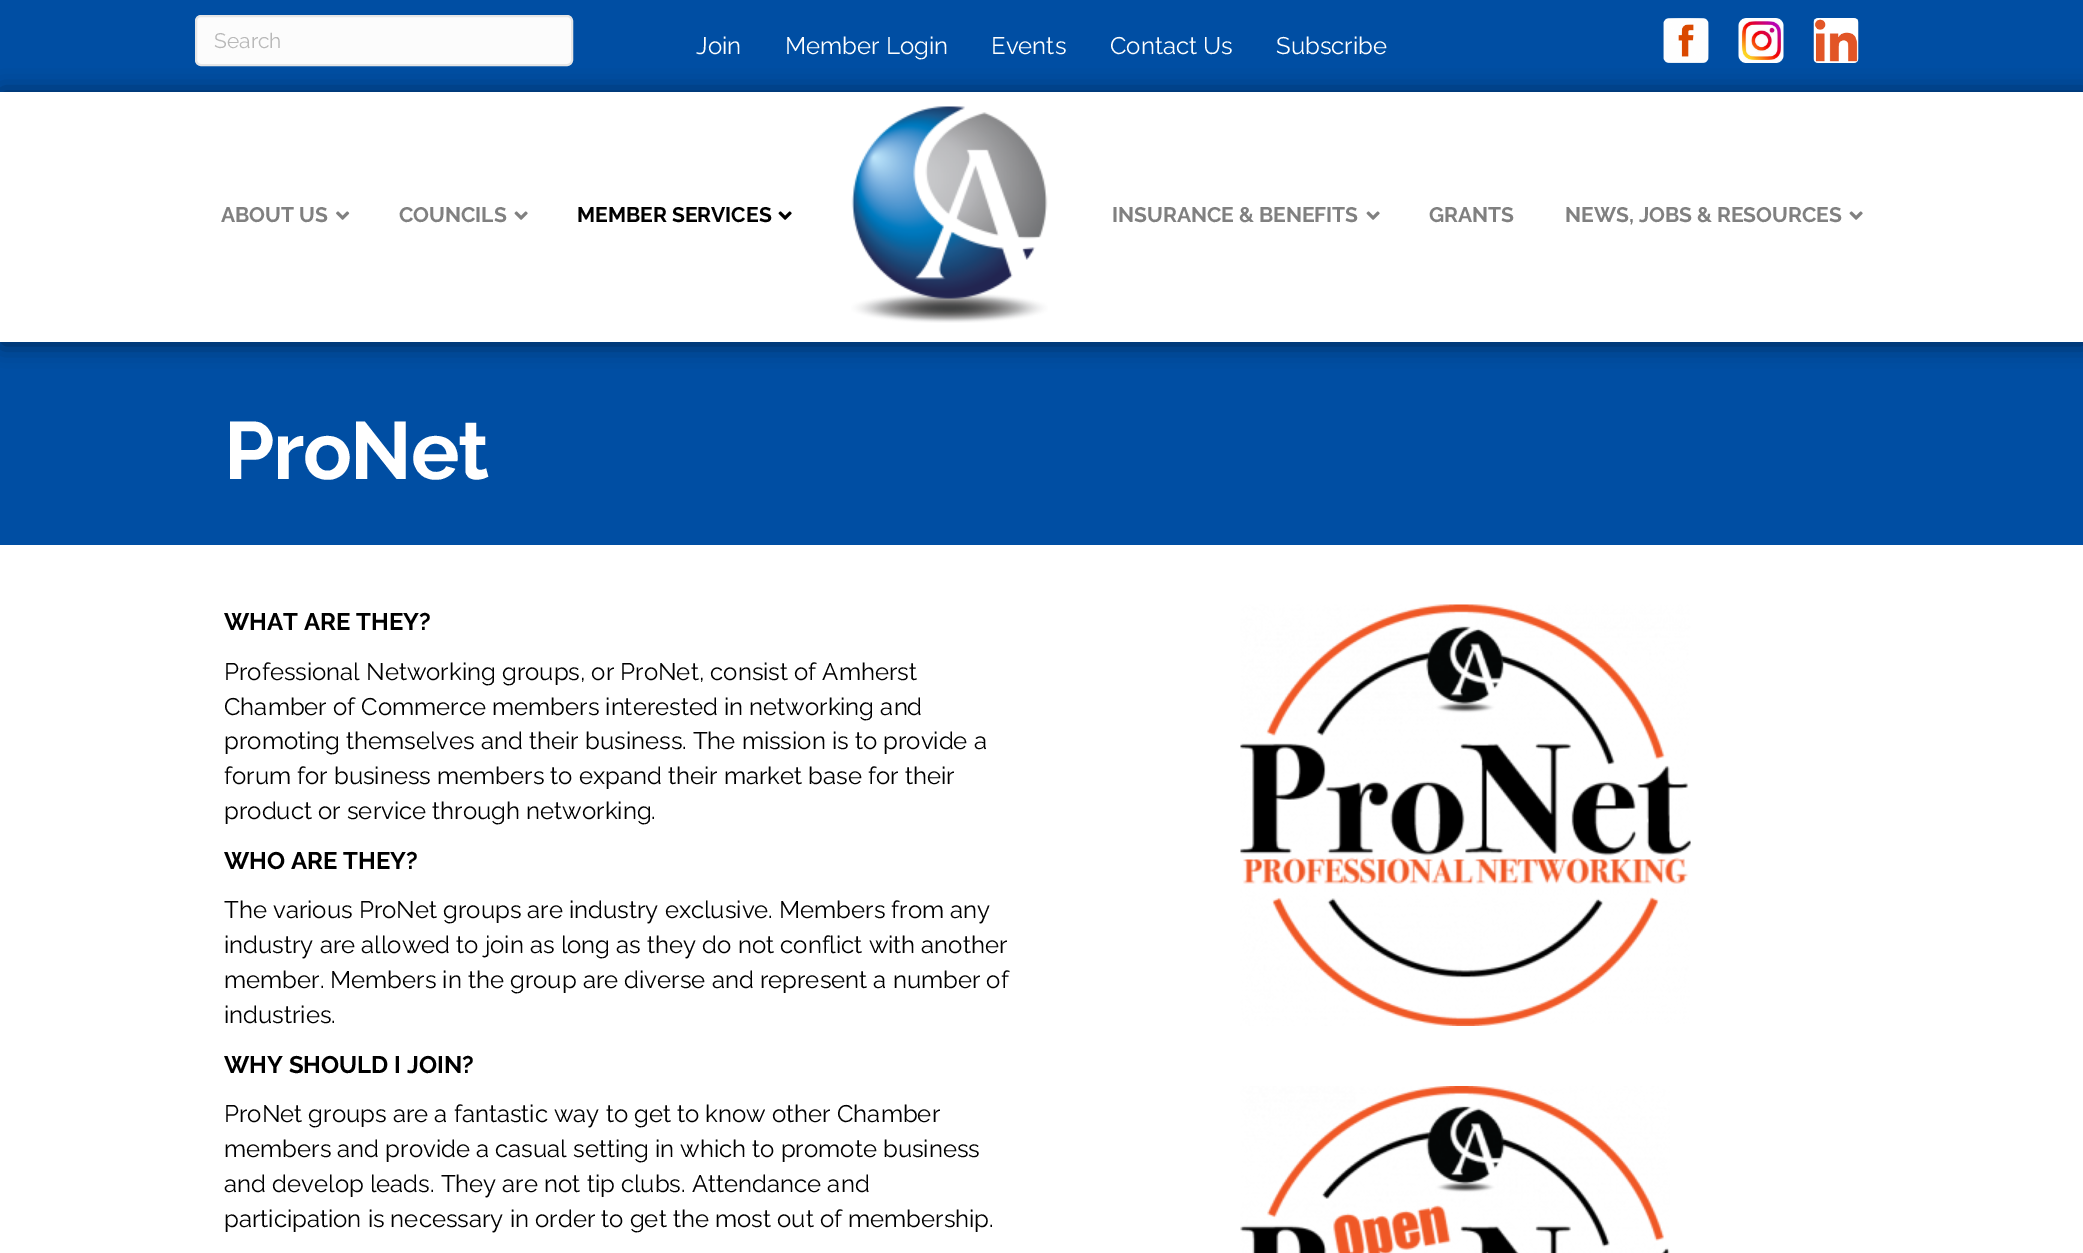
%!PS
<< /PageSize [2083 1253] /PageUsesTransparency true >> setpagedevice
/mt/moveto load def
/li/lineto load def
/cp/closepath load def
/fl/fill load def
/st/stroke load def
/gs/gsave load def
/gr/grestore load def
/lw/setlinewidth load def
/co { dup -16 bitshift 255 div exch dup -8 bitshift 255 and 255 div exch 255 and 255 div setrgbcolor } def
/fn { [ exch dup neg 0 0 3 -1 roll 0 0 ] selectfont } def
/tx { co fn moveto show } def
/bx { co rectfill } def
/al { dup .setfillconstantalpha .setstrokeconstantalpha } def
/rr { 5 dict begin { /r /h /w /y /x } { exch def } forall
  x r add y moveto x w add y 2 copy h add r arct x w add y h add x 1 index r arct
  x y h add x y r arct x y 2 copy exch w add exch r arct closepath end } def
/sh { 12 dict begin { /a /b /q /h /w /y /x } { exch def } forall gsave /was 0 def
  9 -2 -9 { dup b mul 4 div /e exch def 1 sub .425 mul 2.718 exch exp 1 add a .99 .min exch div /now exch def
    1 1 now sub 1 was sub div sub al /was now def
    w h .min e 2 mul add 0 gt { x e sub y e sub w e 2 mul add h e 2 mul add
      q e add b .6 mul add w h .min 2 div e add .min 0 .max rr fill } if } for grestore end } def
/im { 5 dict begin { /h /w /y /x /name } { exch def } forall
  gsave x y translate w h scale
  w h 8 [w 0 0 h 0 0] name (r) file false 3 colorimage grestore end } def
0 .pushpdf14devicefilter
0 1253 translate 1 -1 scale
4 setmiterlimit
0 0 2083 1253 16#FFFFFF bx
0 0 2083 92 16#004EA3 bx
16#FCFCFC co
196 16 376 49 5 rr gs fl gr
16#E6E6E6 co
2 lw
st
(media/1.raw) 1663 18 46 45 im
(media/2.raw) 1738 18 46 45 im
(media/3.raw) 1813 18 46 45 im
0 342 2083 203 16#004EA3 bx
gs
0 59 mt 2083 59 li 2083 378 li 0 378 li cp 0 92 mt 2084 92 li 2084 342 li 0 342 li cp eoclip newpath
16#000000 co
2 93 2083 251 0 11 .5 sh
gr
(media/4.raw) 336 211 14 9 im
(media/5.raw) 514 211 14 9 im
(media/6.raw) 778 211 14 9 im
(media/7.raw) 851 106 197 217 im
(media/5.raw) 1366 211 14 9 im
(media/5.raw) 1849 211 14 9 im
(media/8.raw) 1240 604 451 422 im
(media/9.raw) 1240 1086 430 167 im
(Search) 214 48 /Raleway-Regular 21 16#B9B9B9 tx
(Join) 696 54 /Raleway-Regular 24 16#FFFFFF tx
(Member Login) 785 54 /Raleway-Regular 24 16#FFFFFF tx
(Events) 991 54 /Raleway-Regular 24 16#FFFFFF tx
(Contact Us) 1110 54 /Raleway-Regular 24 16#FFFFFF tx
(Subscribe) 1276 54 /Raleway-Regular 24 16#FFFFFF tx
(ABOUT US) 221 222 /Raleway-Bold 21 16#808080 tx
(COUNCILS) 399 222 /Raleway-Bold 21 16#808080 tx
(MEMBER SERVICES) 577 222 /Raleway-Bold 21 16#000000 tx
(INSURANCE & BENEFITS) 1112 222 /Raleway-Bold 21 16#808080 tx
(GRANTS) 1429 222 /Raleway-Bold 21 16#808080 tx
(NEWS, JOBS & RESOURCES) 1565 222 /Raleway-Bold 21 16#808080 tx
/Raleway-Bold 81 fn
16#FFFFFF co
224 479 mt -1.5 0 (ProNet) ashow
(WHAT ARE THEY?) 224 630 /Raleway-Bold 24 16#000000 tx
(Professional Networking groups, or ProNet, consist of Amherst) 224 680 /Raleway-Regular 24 16#000000 tx
(Chamber of Commerce members interested in networking and) 224 715 /Raleway-Regular 24 16#000000 tx
(promoting themselves and their business. The mission is to provide a) 224 749 /Raleway-Regular 24 16#000000 tx
(forum for business members to expand their market base for their) 224 784 /Raleway-Regular 24 16#000000 tx
(product or service through networking.) 224 819 /Raleway-Regular 24 16#000000 tx
(WHO ARE THEY?) 224 869 /Raleway-Bold 24 16#000000 tx
(The various ProNet groups are industry exclusive. Members from any) 224 918 /Raleway-Regular 24 16#000000 tx
(industry are allowed to join as long as they do not conflict with another) 224 953 /Raleway-Regular 24 16#000000 tx
(member. Members in the group are diverse and represent a number of) 224 988 /Raleway-Regular 24 16#000000 tx
(industries.) 224 1023 /Raleway-Regular 24 16#000000 tx
(WHY SHOULD I JOIN?) 224 1073 /Raleway-Bold 24 16#000000 tx
(ProNet groups are a fantastic way to get to know other Chamber) 224 1122 /Raleway-Regular 24 16#000000 tx
(members and provide a casual setting in which to promote business) 224 1157 /Raleway-Regular 24 16#000000 tx
(and develop leads. They are not tip clubs. Attendance and) 224 1192 /Raleway-Regular 24 16#000000 tx
(participation is necessary in order to get the most out of membership.) 224 1227 /Raleway-Regular 24 16#000000 tx
.poppdf14devicefilter showpage
